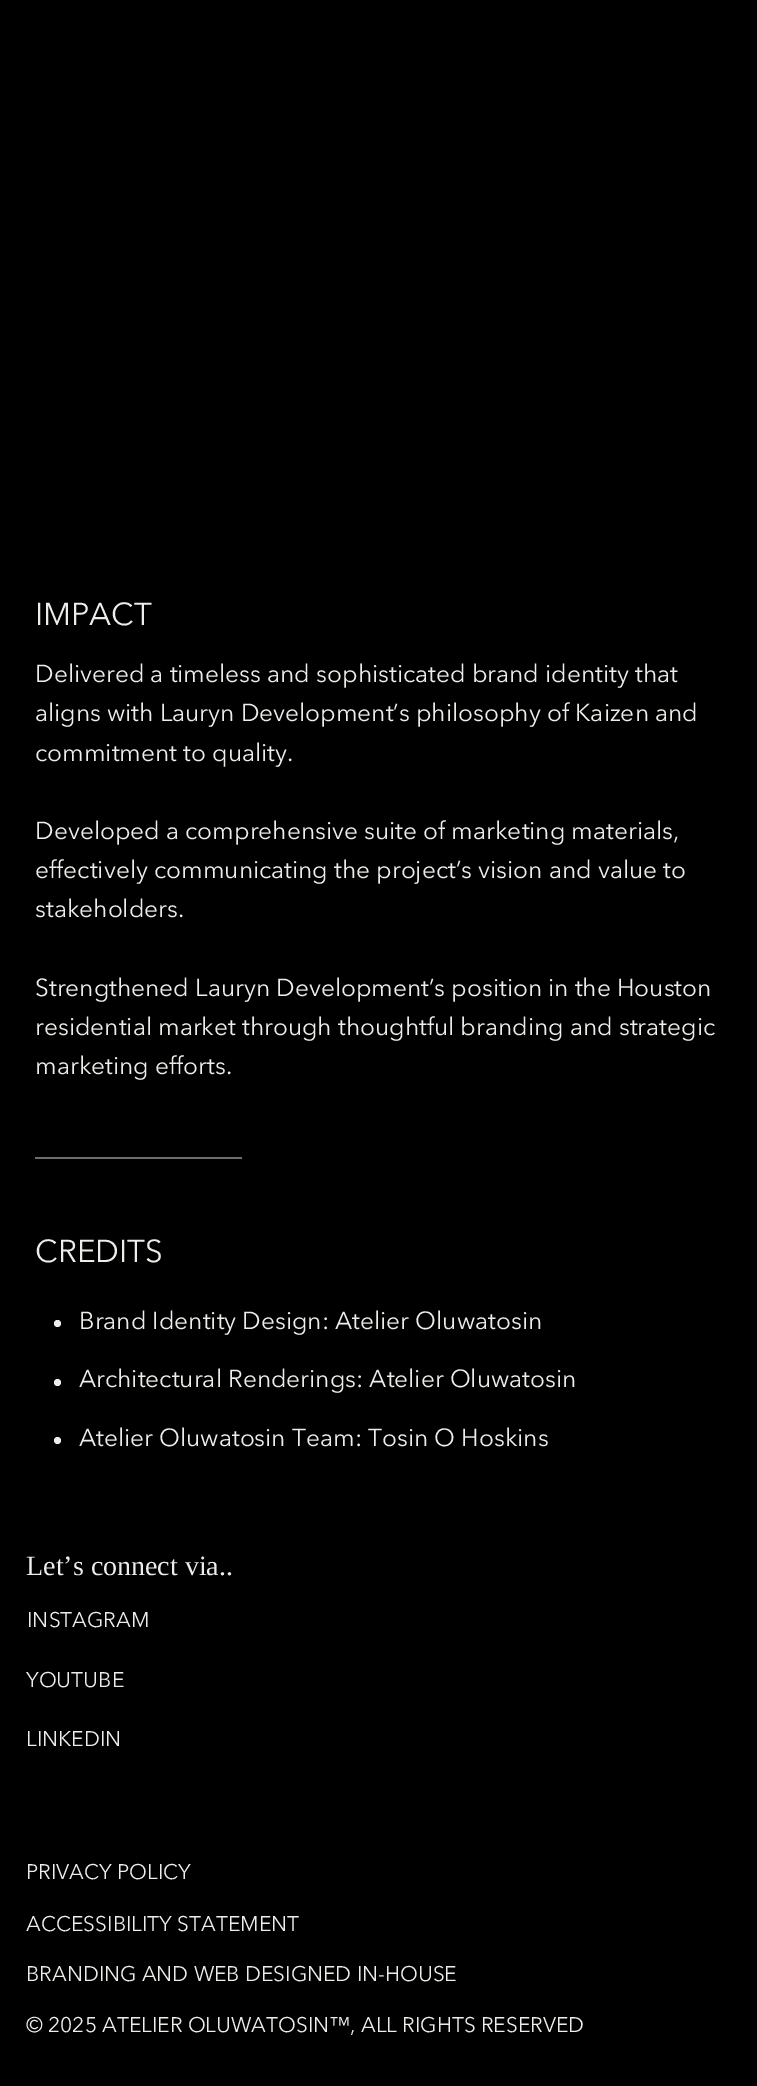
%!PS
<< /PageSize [757 2086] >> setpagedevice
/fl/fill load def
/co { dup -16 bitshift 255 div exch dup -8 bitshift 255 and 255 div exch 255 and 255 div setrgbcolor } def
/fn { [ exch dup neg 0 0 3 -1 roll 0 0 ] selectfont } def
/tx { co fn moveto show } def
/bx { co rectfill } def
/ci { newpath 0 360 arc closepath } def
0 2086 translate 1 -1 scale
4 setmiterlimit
0 0 757 2086 16#000000 bx
35 1157 207 2 16#6E6E6E bx
16#EFEDEA co
57.5 1323.5 3.5 ci fl
57.5 1382.5 3.5 ci fl
57.5 1440.5 3.5 ci fl
(IMPACT) 35 625 /AvenirNext-Regular 31.5 16#EFEDEA tx
(Delivered a timeless and sophisticated brand identity that) 35 682 /AvenirNext-Regular 24.5 16#EFEDEA tx
(aligns with Lauryn Development’s philosophy of Kaizen and) 35 721 /AvenirNext-Regular 24.5 16#EFEDEA tx
(commitment to quality.) 35 761 /AvenirNext-Regular 24.5 16#EFEDEA tx
(Developed a comprehensive suite of marketing materials,) 35 839 /AvenirNext-Regular 24.5 16#EFEDEA tx
(effectively communicating the project’s vision and value to) 35 878 /AvenirNext-Regular 24.5 16#EFEDEA tx
(stakeholders.) 35 917 /AvenirNext-Regular 24.5 16#EFEDEA tx
(Strengthened Lauryn Development’s position in the Houston) 35 996 /AvenirNext-Regular 24.5 16#EFEDEA tx
(residential market through thoughtful branding and strategic) 35 1035 /AvenirNext-Regular 24.5 16#EFEDEA tx
(marketing efforts.) 35 1074 /AvenirNext-Regular 24.5 16#EFEDEA tx
(CREDITS) 35 1262 /AvenirNext-Regular 31.5 16#EFEDEA tx
(Brand Identity Design: Atelier Oluwatosin) 79 1329 /AvenirNext-Regular 24.5 16#EFEDEA tx
(Architectural Renderings: Atelier Oluwatosin) 79 1387 /AvenirNext-Regular 24.5 16#EFEDEA tx
(Atelier Oluwatosin Team: Tosin O Hoskins) 79 1446 /AvenirNext-Regular 24.5 16#EFEDEA tx
(Letʼs connect via..) 26 1575 /LiberationSerif-Regular 28 16#EFEDEA tx
(INSTAGRAM) 27 1627 /AvenirNext-Regular 21 16#EFEDEA tx
(YOUTUBE) 26 1687 /AvenirNext-Regular 21 16#EFEDEA tx
(LINKEDIN) 26 1746 /AvenirNext-Regular 21 16#EFEDEA tx
(PRIVACY POLICY) 26 1879 /AvenirNext-Regular 21 16#EFEDEA tx
(ACCESSIBILITY STATEMENT) 26 1931 /AvenirNext-Regular 21 16#EFEDEA tx
(BRANDING AND WEB DESIGNED IN-HOUSE) 26 1981 /AvenirNext-Regular 21 16#EFEDEA tx
(© 2025 ATELIER OLUWATOSIN™, ALL RIGHTS RESERVED) 26 2032 /AvenirNext-Regular 21 16#EFEDEA tx
showpage
